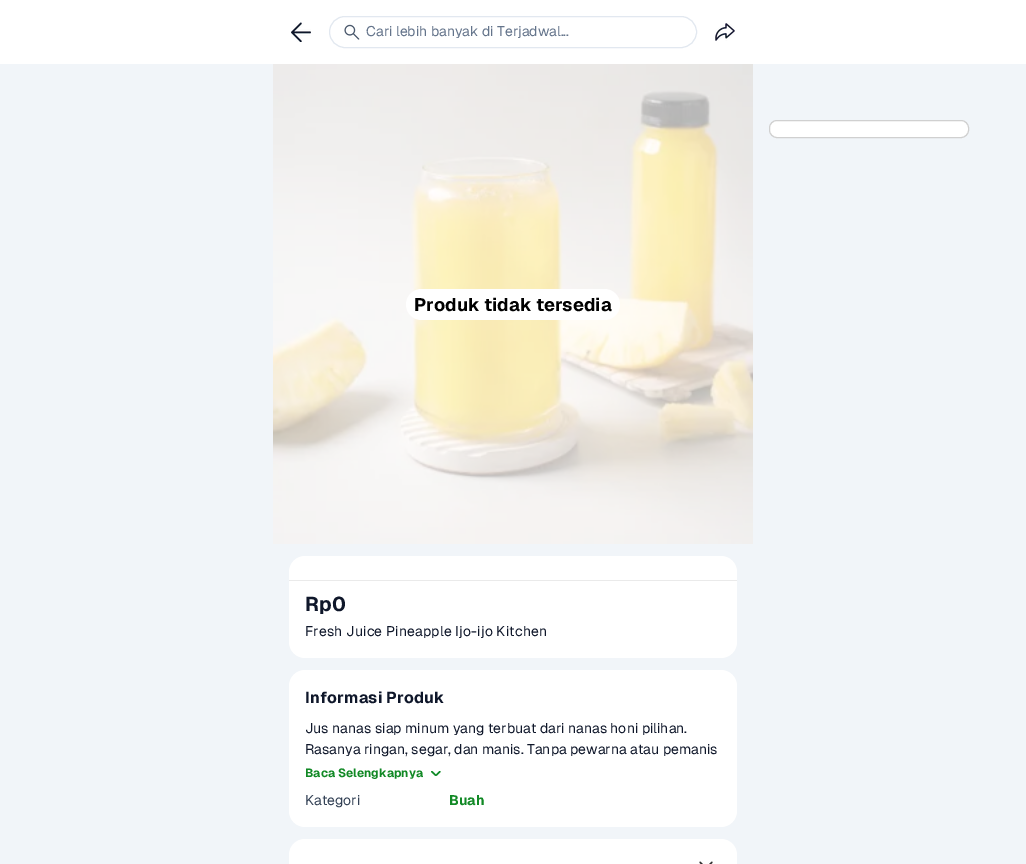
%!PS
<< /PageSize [1026 864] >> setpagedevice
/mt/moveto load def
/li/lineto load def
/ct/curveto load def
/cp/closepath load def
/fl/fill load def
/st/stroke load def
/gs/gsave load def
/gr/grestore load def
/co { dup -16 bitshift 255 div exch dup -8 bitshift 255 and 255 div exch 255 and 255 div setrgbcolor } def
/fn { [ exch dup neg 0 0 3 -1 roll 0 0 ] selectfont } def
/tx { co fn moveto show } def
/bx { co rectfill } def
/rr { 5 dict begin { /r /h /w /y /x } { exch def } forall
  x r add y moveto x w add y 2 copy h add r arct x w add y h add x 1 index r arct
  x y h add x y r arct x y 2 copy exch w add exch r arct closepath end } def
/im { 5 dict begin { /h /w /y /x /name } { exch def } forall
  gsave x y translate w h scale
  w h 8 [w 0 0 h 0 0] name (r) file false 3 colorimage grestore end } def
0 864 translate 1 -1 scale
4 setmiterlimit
0 0 1026 864 16#F1F5F9 bx
0 0 1026 64 16#FFFFFF bx
(media/1.raw) 291 22 20 20 im
16#E2E8F0 co
329.5 16.5 367 31 15.5 rr st
(media/2.raw) 344 24 16 16 im
(media/3.raw) 715 23 20 18 im
16#FFFFFF co
769.5 120.5 199 17 7.5 rr gs fl gr
16#D0D0D0 co
st
(media/4.raw) 273 64 480 480 im
16#FFFFFF co
406 289 214 31 15.5 rr fl
289 556 448 102 16 rr fl
289 580 448 1 16#EAEAEA bx
16#FFFFFF co
289 670 448 157 16 rr fl
(media/5.raw) 431 771 10 5 im
305 839 mt 721 839 li 730 839 737 846 737 855 ct 737 864 li 289 864 li 289 855 li 289 846 296 839 305 839 ct cp fl
(media/6.raw) 699 861 14 3 im
(Cari lebih banyak di Terjadwal...) 366 36 /Geist-Regular 14 16#64748B tx
(Produk tidak tersedia) 414 311 /Geist-Bold 18.25 16#000000 tx
(Rp0) 305 611 /Geist-Bold 20 16#0F172A tx
/Geist-Regular 14 fn
305 636 mt .15 0 (Fresh Juice Pineapple Ijo-ijo Kitchen) ashow
/Geist-Bold 16 fn
305 703 mt .15 0 (Informasi Produk) ashow
(Jus nanas siap minum yang terbuat dari nanas honi pilihan.) 305 733 /Geist-Regular 14 16#0F172A tx
(Rasanya ringan, segar, dan manis. Tanpa pewarna atau pemanis) 305 754 /Geist-Regular 14 16#0F172A tx
(Baca Selengkapnya) 305 777 /Geist-Bold 12 16#118925 tx
(Kategori) 305 805 /Geist-Regular 14 16#334155 tx
(Buah) 449 805 /Geist-Bold 14 16#118925 tx
showpage
